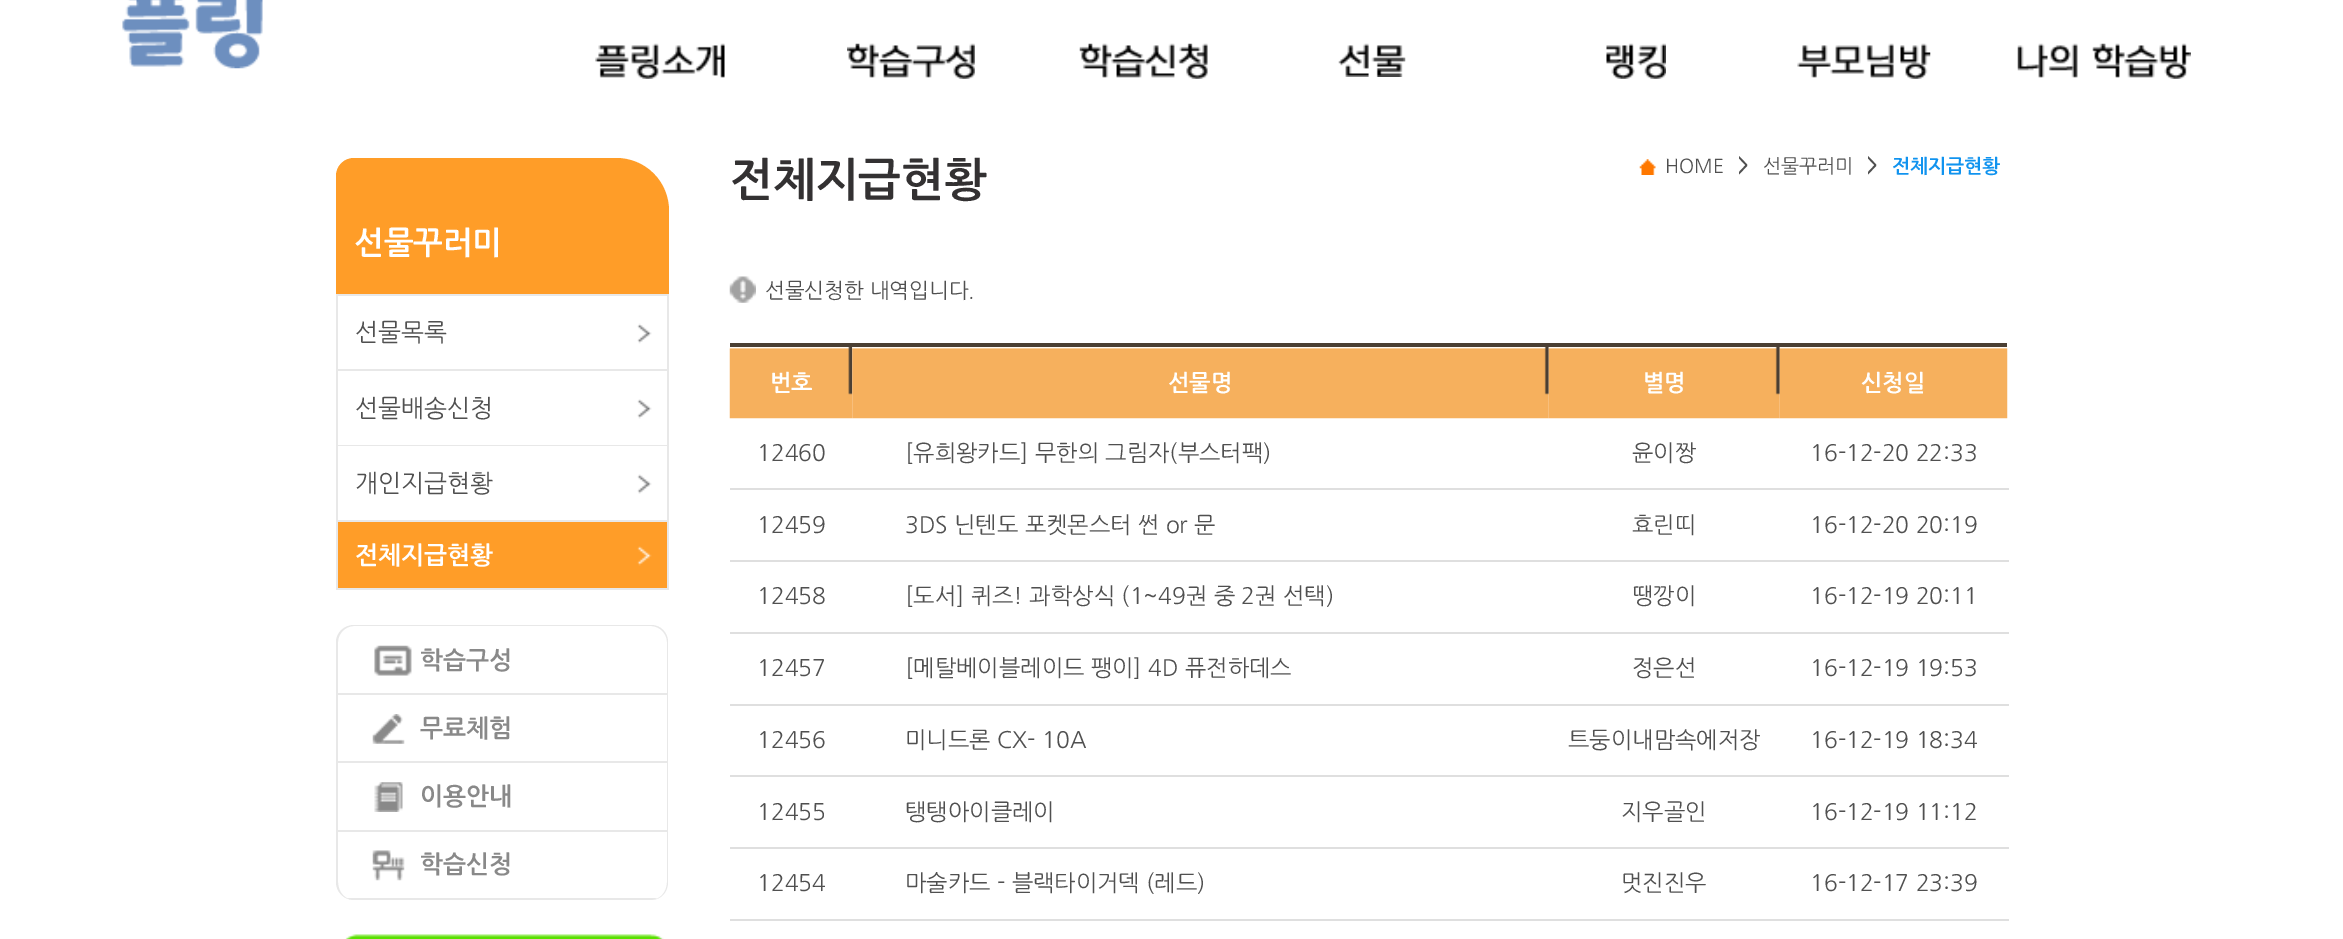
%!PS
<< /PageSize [2343 939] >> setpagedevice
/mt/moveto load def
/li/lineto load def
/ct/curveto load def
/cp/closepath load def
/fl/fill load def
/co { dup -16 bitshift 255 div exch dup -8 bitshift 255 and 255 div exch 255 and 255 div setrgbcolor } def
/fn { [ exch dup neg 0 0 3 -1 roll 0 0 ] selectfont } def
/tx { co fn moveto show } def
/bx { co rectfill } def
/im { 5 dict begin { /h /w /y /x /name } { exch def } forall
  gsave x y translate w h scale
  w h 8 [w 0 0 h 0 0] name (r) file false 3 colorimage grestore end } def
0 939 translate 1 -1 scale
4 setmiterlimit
0 0 2343 939 16#FFFFFF bx
(media/1.raw) 122 0 141 69 im
(media/2.raw) 595 43 130 36 im
(media/3.raw) 847 43 128 36 im
(media/4.raw) 1079 43 129 36 im
(media/5.raw) 1338 43 68 34 im
(media/6.raw) 1606 43 60 36 im
(media/7.raw) 1797 43 134 36 im
(media/8.raw) 2017 43 174 36 im
16#FF9D28 co
354 158 mt 616 158 li 645.5 158 669 181.5 669 211 ct 669 294 li 336 294 li 336 176 li 336 166 344 158 354 158 ct cp fl
336 294 333 2 16#E8E8E8 bx
667 294 2 296 16#E8E8E8 bx
336 294 2 296 16#E8E8E8 bx
338 369 329 2 16#E8E8E8 bx
(media/9.raw) 637 323 15 21 im
338 445 329 1 16#E8E8E8 bx
(media/10.raw) 637 399 15 20 im
338 520 329 2 16#E8E8E8 bx
(media/11.raw) 637 474 15 20 im
338 588 329 2 16#E8E8E8 bx
338 522 329 66 16#FF9D28 bx
(media/12.raw) 637 546 15 20 im
16#E8E8E8 co
354 625 mt 651 625 li 661 625 668 633 668 642 ct 668 882 li 668 892 661 900 651 900 ct 354 900 li 344 900 336 892 336 882 ct 336 642 li 336 633 344 625 354 625 ct cp 354 626 mt 651 626 li 660 626 667 634 667 642 ct 667 882 li 667 892 660 900 651 900 ct 354 900 li 345 900 338 892 338 882 ct 338 642 li 338 634 345 626 354 626 ct cp eofill
338 693 329 2 16#E8E8E8 bx
(media/13.raw) 374 645 38 31 im
338 761 329 2 16#E8E8E8 bx
(media/14.raw) 372 714 33 30 im
338 830 329 2 16#E8E8E8 bx
(media/15.raw) 374 782 29 30 im
657 898 mt 655 899 653 900 651 900 ct 354 900 li 351 900 349 899 347 898 ct cp fl
(media/16.raw) 372 850 33 31 im
(media/17.raw) 345 934 319 5 im
(media/18.raw) 1639 159 17 16 im
(media/19.raw) 729 276 27 27 im
(media/20.raw) 729 346 124 73 im
(media/21.raw) 852 347 697 72 im
(media/22.raw) 1548 347 232 72 im
(media/23.raw) 1779 346 229 73 im
730 343 1277 4 16#4B3F33 bx
730 488 1279 2 16#DFDFDF bx
730 560 1279 2 16#DFDFDF bx
730 632 1279 2 16#DFDFDF bx
730 704 1279 2 16#DFDFDF bx
730 775 1279 2 16#DFDFDF bx
730 847 1279 2 16#DFDFDF bx
730 919 1279 2 16#DFDFDF bx
(선물꾸러미) 354 254 /NanumGothic-Bold 31.5 16#FFFFFF tx
(선물목록) 355 341 /NanumGothic-Regular 24.5 16#505050 tx
(선물배송신청) 355 417 /NanumGothic-Regular 24.5 16#505050 tx
(개인지급현황) 355 492 /NanumGothic-Regular 24.5 16#505050 tx
(전체지급현황) 355 564 /NanumGothic-Bold 24.5 16#FFFFFF tx
(학습구성) 420 669 /NanumGothic-Bold 24.5 16#898989 tx
(무료체험) 420 737 /NanumGothic-Bold 24.5 16#898989 tx
(이용안내) 420 805 /NanumGothic-Bold 24.5 16#898989 tx
(학습신청) 420 873 /NanumGothic-Bold 24.5 16#898989 tx
(전체지급현황) 730 196 /NanumGothic-Bold 45.5 16#333132 tx
(HOME) 1665 173 /NanumGothic-Regular 19.25 16#505050 tx
(>) 1738 172 /NanumGothic-Bold 19.25 16#505050 tx
(선물꾸러미) 1763 173 /NanumGothic-Regular 19.25 16#505050 tx
(>) 1867 172 /NanumGothic-Bold 19.25 16#505050 tx
(전체지급현황) 1892 173 /NanumGothic-Bold 19.25 16#1093EF tx
(선물신청한 내역입니다.) 765 298 /NanumGothic-Regular 21 16#505050 tx
(번호) 770 391 /NanumGothic-Bold 22.75 16#FFFFFF tx
(선물명) 1168 391 /NanumGothic-Bold 22.75 16#FFFFFF tx
(별명) 1643 391 /NanumGothic-Bold 22.75 16#FFFFFF tx
(신청일) 1861 391 /NanumGothic-Bold 22.75 16#FFFFFF tx
(12460) 757 461 /NanumGothic-Regular 22.75 16#505050 tx
([유희왕카드] 무한의 그림자\(부스터팩\)) 905 461 /NanumGothic-Regular 22.75 16#505050 tx
(윤이짱) 1632 461 /NanumGothic-Regular 22.75 16#505050 tx
(16-12-20 22:33) 1810 461 /NanumGothic-Regular 22.75 16#505050 tx
(12459) 757 533 /NanumGothic-Regular 22.75 16#505050 tx
(3DS 닌텐도 포켓몬스터 썬 or 문) 905 533 /NanumGothic-Regular 22.75 16#505050 tx
(효린띠) 1632 533 /NanumGothic-Regular 22.75 16#505050 tx
(16-12-20 20:19) 1810 533 /NanumGothic-Regular 22.75 16#505050 tx
(12458) 757 604 /NanumGothic-Regular 22.75 16#505050 tx
([도서] 퀴즈! 과학상식 \(1~49권 중 2권 선택\)) 905 604 /NanumGothic-Regular 22.75 16#505050 tx
(땡깡이) 1632 604 /NanumGothic-Regular 22.75 16#505050 tx
(16-12-19 20:11) 1810 604 /NanumGothic-Regular 22.75 16#505050 tx
(12457) 757 676 /NanumGothic-Regular 22.75 16#505050 tx
([메탈베이블레이드 팽이] 4D 퓨전하데스) 905 676 /NanumGothic-Regular 22.75 16#505050 tx
(정은선) 1632 676 /NanumGothic-Regular 22.75 16#505050 tx
(16-12-19 19:53) 1810 676 /NanumGothic-Regular 22.75 16#505050 tx
(12456) 757 748 /NanumGothic-Regular 22.75 16#505050 tx
(미니드론 CX- 10A) 905 748 /NanumGothic-Regular 22.75 16#505050 tx
(트둥이내맘속에저장) 1568 748 /NanumGothic-Regular 22.75 16#505050 tx
(16-12-19 18:34) 1810 748 /NanumGothic-Regular 22.75 16#505050 tx
(12455) 757 820 /NanumGothic-Regular 22.75 16#505050 tx
(탱탱아이클레이) 905 820 /NanumGothic-Regular 22.75 16#505050 tx
(지우골인) 1621 820 /NanumGothic-Regular 22.75 16#505050 tx
(16-12-19 11:12) 1810 820 /NanumGothic-Regular 22.75 16#505050 tx
(12454) 757 891 /NanumGothic-Regular 22.75 16#505050 tx
(마술카드 - 블랙타이거덱 \(레드\)) 905 891 /NanumGothic-Regular 22.75 16#505050 tx
(멋진진우) 1621 891 /NanumGothic-Regular 22.75 16#505050 tx
(16-12-17 23:39) 1810 891 /NanumGothic-Regular 22.75 16#505050 tx
showpage
